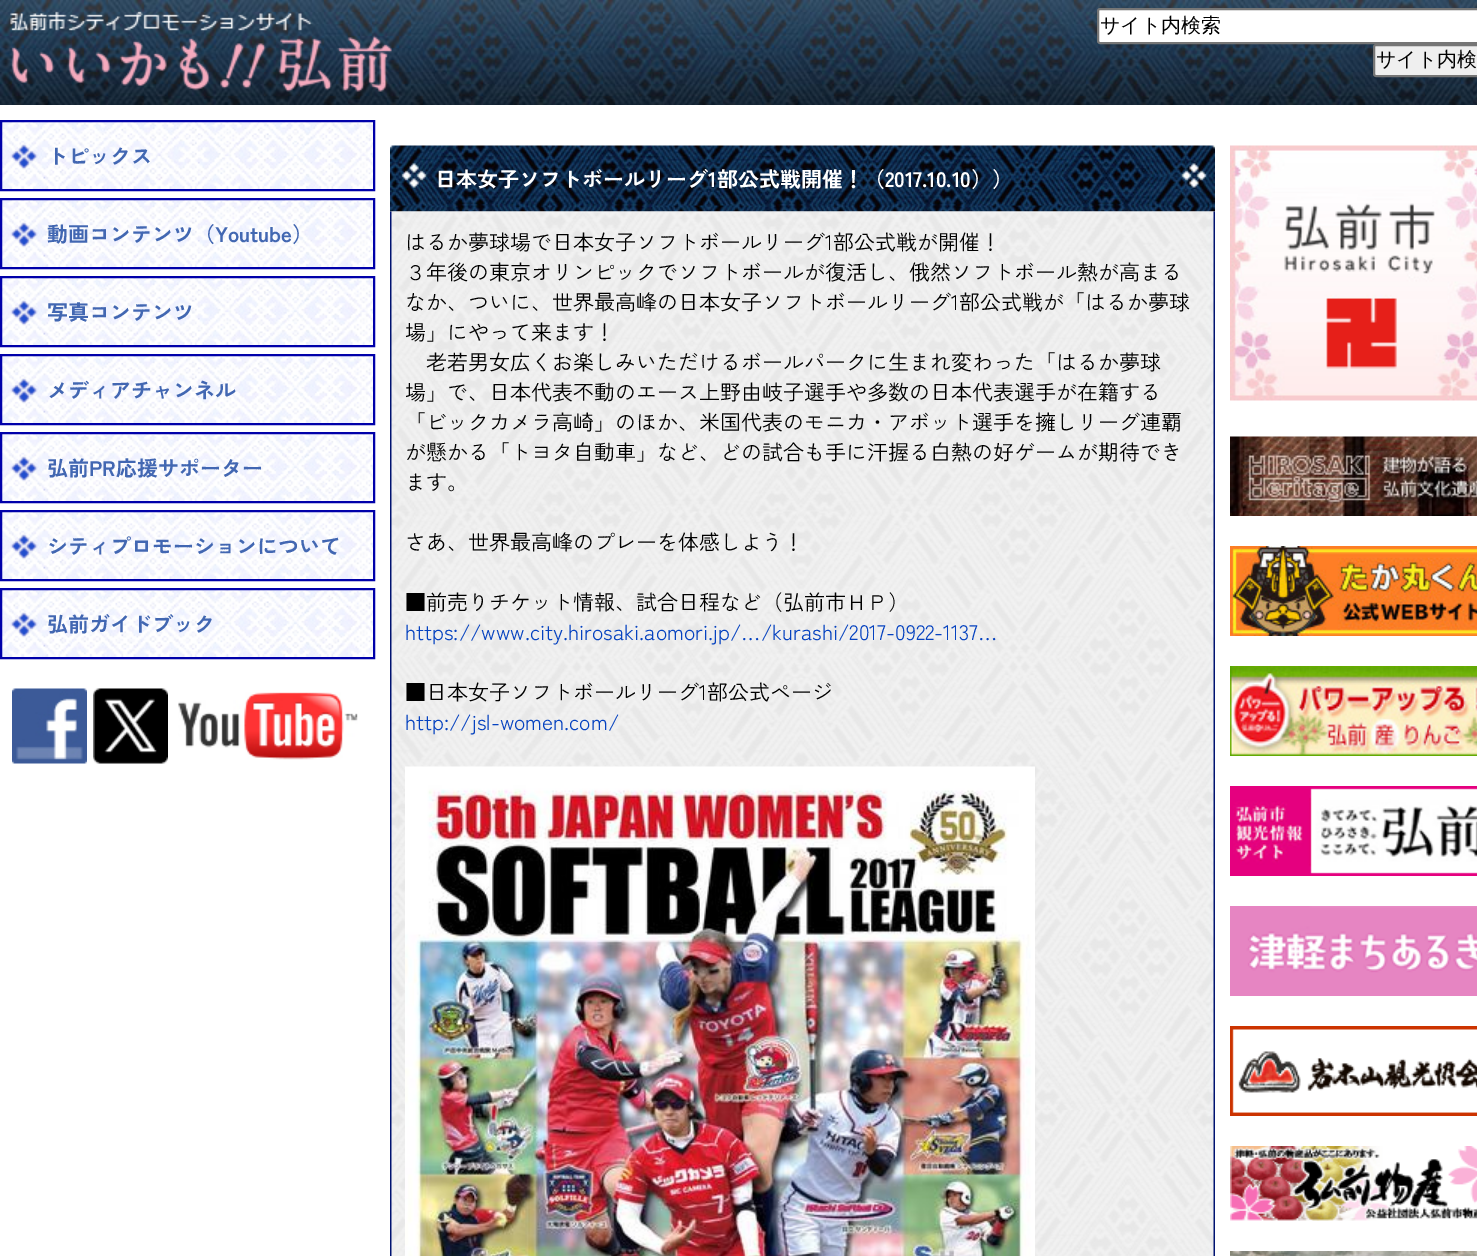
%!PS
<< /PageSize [1477 1256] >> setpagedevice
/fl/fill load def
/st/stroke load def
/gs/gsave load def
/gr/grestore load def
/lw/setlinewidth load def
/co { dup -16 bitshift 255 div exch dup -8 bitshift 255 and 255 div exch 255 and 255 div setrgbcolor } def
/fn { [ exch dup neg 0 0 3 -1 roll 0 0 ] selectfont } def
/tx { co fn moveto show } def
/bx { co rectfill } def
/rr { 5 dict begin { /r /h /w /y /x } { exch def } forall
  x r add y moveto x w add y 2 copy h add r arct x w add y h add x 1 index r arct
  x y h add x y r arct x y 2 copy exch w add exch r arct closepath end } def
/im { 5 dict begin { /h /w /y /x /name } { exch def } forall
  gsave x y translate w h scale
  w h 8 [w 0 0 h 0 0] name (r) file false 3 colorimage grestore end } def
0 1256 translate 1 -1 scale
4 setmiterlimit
0 0 1477 1256 16#FFFFFF bx
(media/1.raw) 0 0 1477 105 im
(media/2.raw) 10 11 382 81 im
1098 9 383 34 2 rr gs fl gr
16#767676 co
2 lw
st
16#EFEFEF co
1374 45 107 31 2 rr gs fl gr
16#767676 co
st
(media/3.raw) 2 122 371 67 im
16#0000AA co
1 121 373 69 rectstroke
(media/3.raw) 2 200 371 67 im
1 199 373 69 rectstroke
(media/3.raw) 2 278 371 67 im
1 277 373 69 rectstroke
(media/3.raw) 2 356 371 67 im
1 355 373 69 rectstroke
(media/4.raw) 2 434 371 67 im
1 433 373 69 rectstroke
(media/3.raw) 2 512 371 67 im
1 511 373 69 rectstroke
(media/3.raw) 2 590 371 67 im
1 589 373 69 rectstroke
(media/5.raw) 12 688 75 76 im
(media/6.raw) 93 688 75 76 im
(media/7.raw) 178 692 180 68 im
(media/8.raw) 390 145 825 67 im
(media/9.raw) 390 211 825 1045 im
(media/10.raw) 405 766 630 490 im
(media/11.raw) 1230 145 247 256 im
(media/12.raw) 1230 436 247 80 im
(media/13.raw) 1230 546 247 90 im
(media/14.raw) 1230 666 247 90 im
(media/15.raw) 1230 786 247 90 im
(media/16.raw) 1230 906 247 90 im
(media/17.raw) 1230 1026 247 90 im
(media/18.raw) 1230 1146 247 75 im
(media/19.raw) 1230 1251 247 5 im
(サイト内検索) 1100 32 /WenQuanYiZenHei-Medium 20 16#000000 tx
(サイト内検) 1376 66 /WenQuanYiZenHei-Medium 20 16#000000 tx
(トピックス) 47 164 /ZenKakuGothicNew-Bold 21 16#4267B2 tx
(動画コンテンツ（Youtube）) 47 242 /ZenKakuGothicNew-Bold 21 16#4267B2 tx
(写真コンテンツ) 47 320 /ZenKakuGothicNew-Bold 21 16#4267B2 tx
(メディアチャンネル) 47 398 /ZenKakuGothicNew-Bold 21 16#4267B2 tx
(弘前PR応援サポーター) 47 476 /ZenKakuGothicNew-Bold 21 16#4267B2 tx
(シティプロモーションについて) 47 554 /ZenKakuGothicNew-Bold 21 16#4267B2 tx
(弘前ガイドブック) 47 632 /ZenKakuGothicNew-Bold 21 16#4267B2 tx
(日本女子ソフトボールリーグ1部公式戦開催！（2017.10.10））) 435 187 /ZenKakuGothicNew-Bold 21 16#FFFFFF tx
(はるか夢球場で日本女子ソフトボールリーグ1部公式戦が開催！) 405 250 /ZenKakuGothicNew-Regular 21 16#000000 tx
(３年後の東京オリンピックでソフトボールが復活し、俄然ソフトボール熱が高まる) 405 280 /ZenKakuGothicNew-Regular 21 16#000000 tx
(なか、ついに、世界最高峰の日本女子ソフトボールリーグ1部公式戦が「はるか夢球) 405 310 /ZenKakuGothicNew-Regular 21 16#000000 tx
(場」にやって来ます！) 405 340 /ZenKakuGothicNew-Regular 21 16#000000 tx
(老若男女広くお楽しみいただけるボールパークに生まれ変わった「はるか夢球) 426 370 /ZenKakuGothicNew-Regular 21 16#000000 tx
(場」で、日本代表不動のエース上野由岐子選手や多数の日本代表選手が在籍する) 405 400 /ZenKakuGothicNew-Regular 21 16#000000 tx
(「ビックカメラ高崎」のほか、米国代表のモニカ・アボット選手を擁しリーグ連覇) 405 430 /ZenKakuGothicNew-Regular 21 16#000000 tx
(が懸かる「トヨタ自動車」など、どの試合も手に汗握る白熱の好ゲームが期待でき) 405 460 /ZenKakuGothicNew-Regular 21 16#000000 tx
(ます。) 405 490 /ZenKakuGothicNew-Regular 21 16#000000 tx
(さあ、世界最高峰のプレーを体感しよう！) 405 550 /ZenKakuGothicNew-Regular 21 16#000000 tx
(■前売りチケット情報、試合日程など（弘前市ＨＰ）) 405 610 /ZenKakuGothicNew-Regular 21 16#000000 tx
(https://www.city.hirosaki.aomori.jp/…/kurashi/2017-0922-1137…) 405 640 /ZenKakuGothicNew-Regular 21 16#0542C0 tx
(■日本女子ソフトボールリーグ1部公式ページ) 405 700 /ZenKakuGothicNew-Regular 21 16#000000 tx
(http://jsl-women.com/) 405 730 /ZenKakuGothicNew-Regular 21 16#0542C0 tx
showpage
